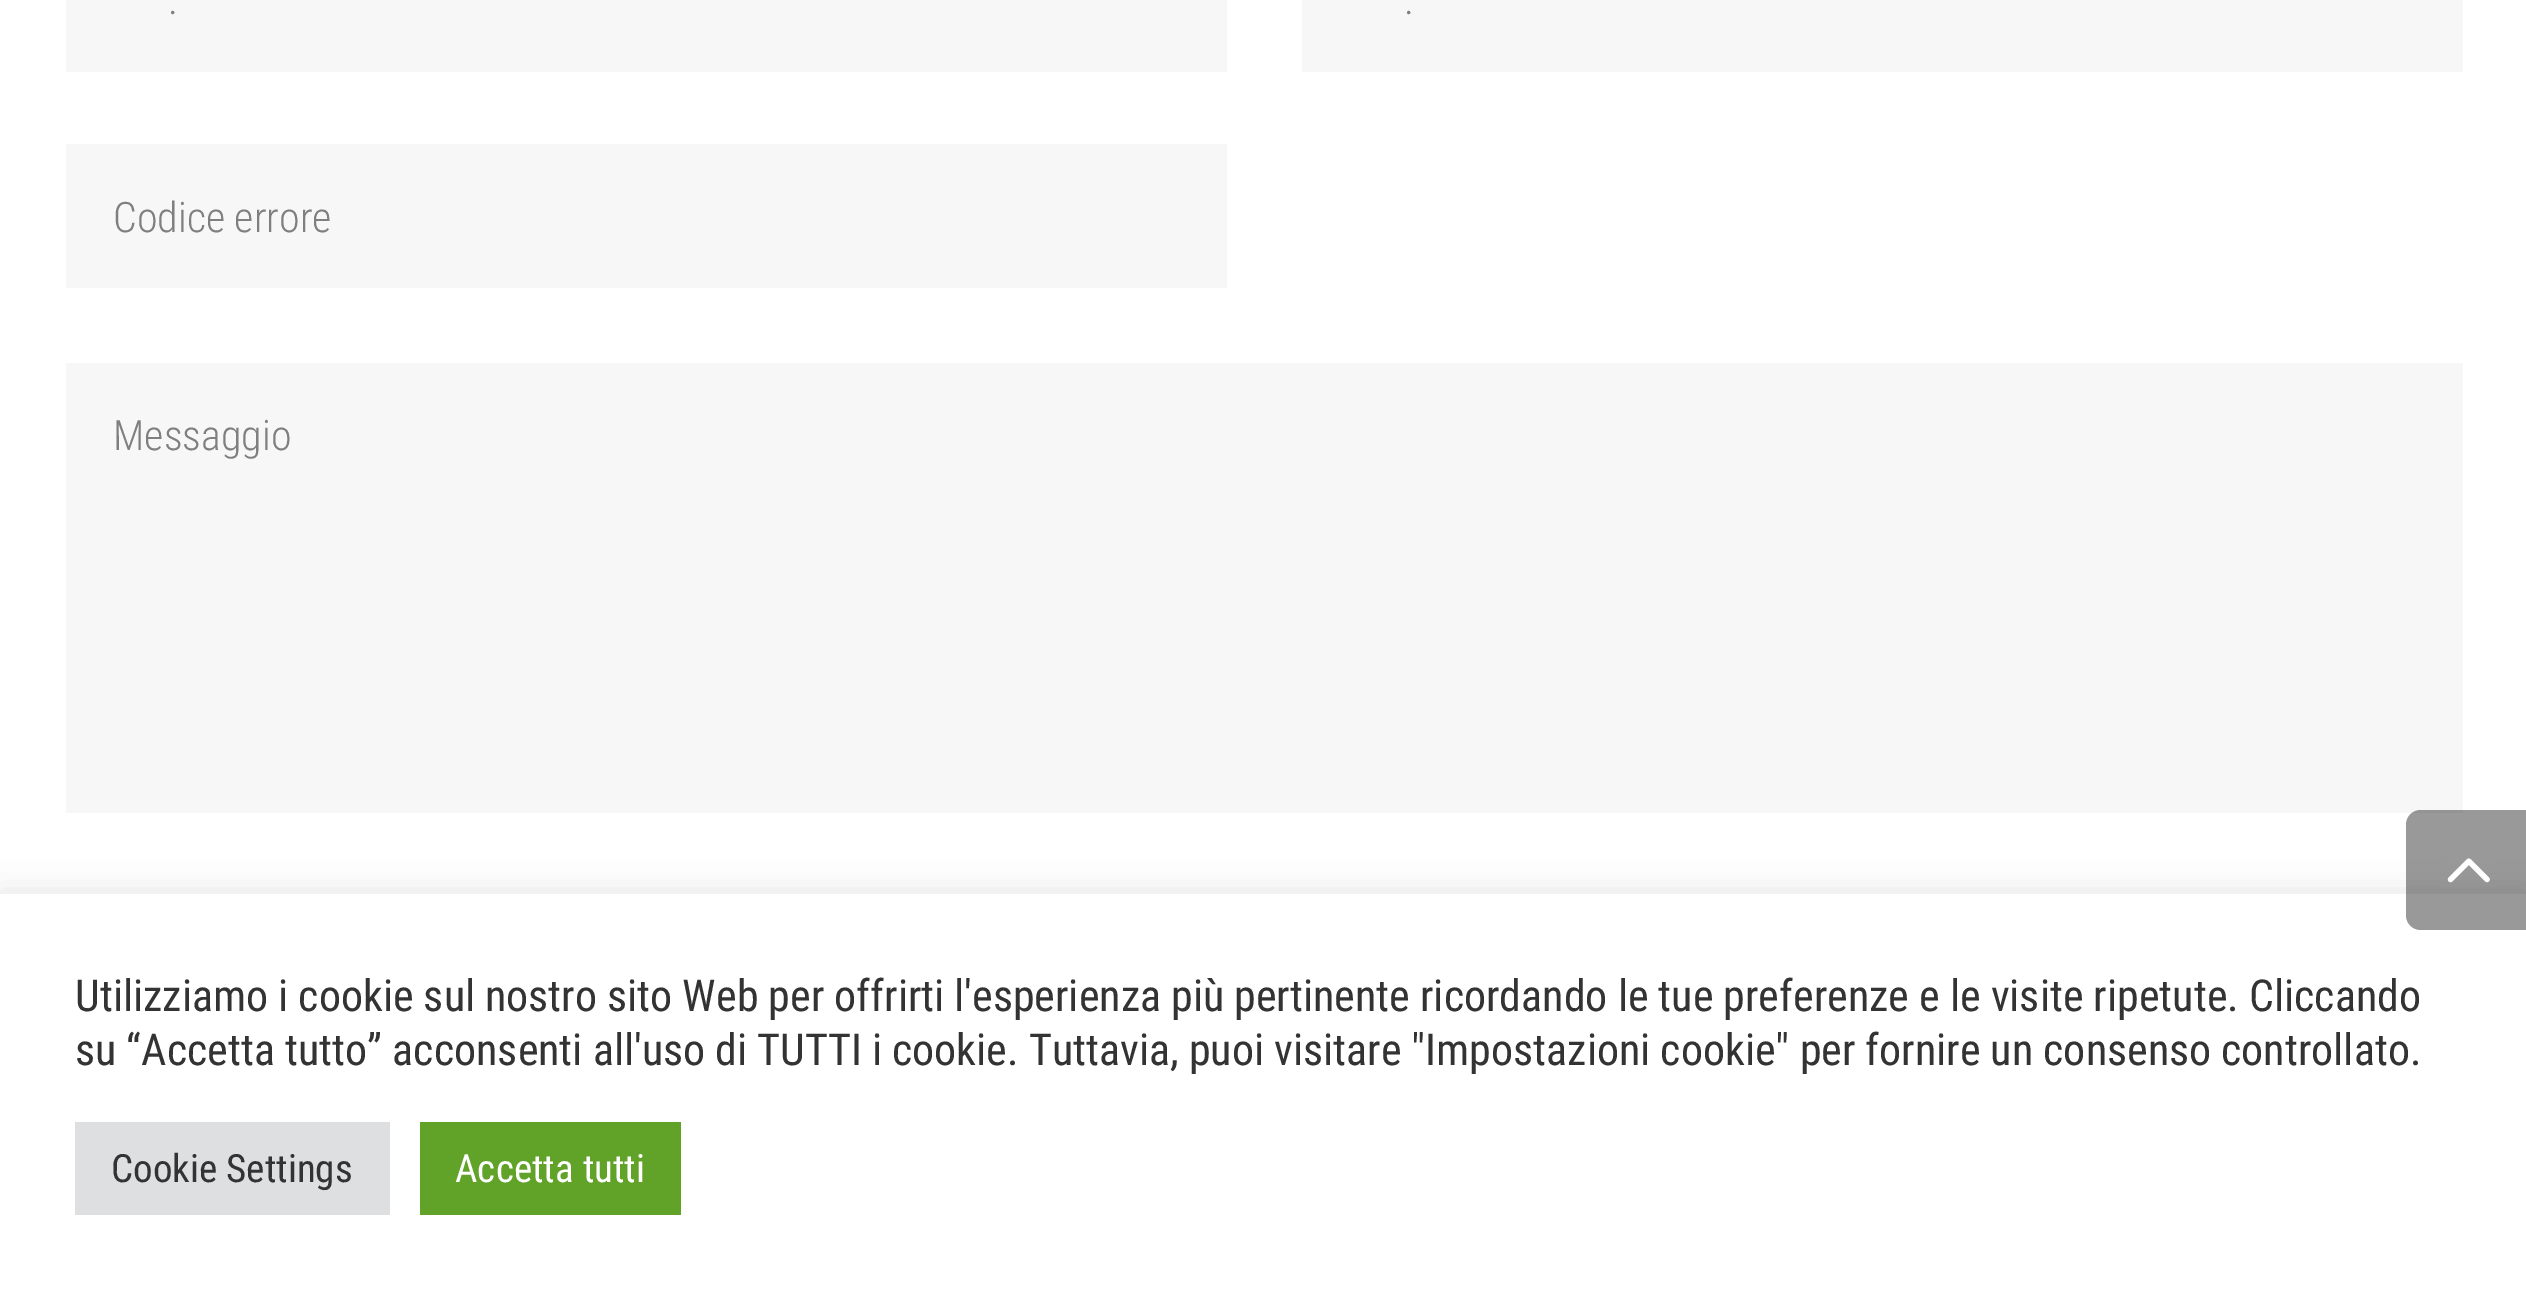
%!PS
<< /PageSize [2526 1305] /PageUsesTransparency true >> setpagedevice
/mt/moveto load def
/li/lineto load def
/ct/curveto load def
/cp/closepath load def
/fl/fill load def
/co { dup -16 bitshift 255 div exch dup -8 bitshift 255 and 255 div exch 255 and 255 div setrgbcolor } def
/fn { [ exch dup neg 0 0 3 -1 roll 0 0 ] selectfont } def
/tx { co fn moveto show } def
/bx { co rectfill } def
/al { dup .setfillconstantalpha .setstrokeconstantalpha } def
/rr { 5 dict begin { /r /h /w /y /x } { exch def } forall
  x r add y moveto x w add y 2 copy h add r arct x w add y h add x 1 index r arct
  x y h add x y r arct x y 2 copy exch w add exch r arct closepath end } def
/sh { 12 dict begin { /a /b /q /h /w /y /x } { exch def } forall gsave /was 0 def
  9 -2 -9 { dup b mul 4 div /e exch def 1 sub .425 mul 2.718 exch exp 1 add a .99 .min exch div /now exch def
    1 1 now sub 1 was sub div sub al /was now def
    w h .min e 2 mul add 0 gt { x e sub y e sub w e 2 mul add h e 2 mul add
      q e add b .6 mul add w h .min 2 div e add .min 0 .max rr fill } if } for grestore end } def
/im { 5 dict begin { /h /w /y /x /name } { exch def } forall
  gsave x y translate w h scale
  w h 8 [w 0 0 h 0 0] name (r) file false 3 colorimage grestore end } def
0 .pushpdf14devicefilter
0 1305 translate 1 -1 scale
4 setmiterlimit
0 0 2526 1305 16#FFFFFF bx
66 0 1161 72 16#F7F7F7 bx
1302 0 1161 72 16#F7F7F7 bx
66 144 1161 144 16#F7F7F7 bx
66 363 2397 450 16#F7F7F7 bx
16#ACABAB co
0 891 2526 411 0 15 .3 sh
0 894 2526 411 16#FFFFFF bx
0.4 al
16#000000 co
2421 810 mt 2526 810 li 2526 930 li 2421 930 li 2412.5 930 2406 923.5 2406 915 ct 2406 825 li 2406 816.5 2412.5 810 2421 810 ct cp fl
1 al
(media/1.raw) 2447 858 43 25 im
75 1122 315 93 16#DEDFE0 bx
420 1122 261 93 16#61A229 bx
(.) 168 14 /RobotoCondensed-Light 42 16#7F7F7F tx
(.) 1404 14 /RobotoCondensed-Light 42 16#7F7F7F tx
(Codice errore) 113 232 /RobotoCondensed-Light 42 16#7F7F7F tx
(Messaggio) 113 450 /RobotoCondensed-Light 42 16#7F7F7F tx
(Utilizziamo i cookie sul nostro sito Web per offrirti l'esperienza più pertinente ricordando le tue preferenze e le visite ripetute. Cliccando) 75 1011 /RobotoCondensed-Regular 44 16#333333 tx
(su “Accetta tutto” acconsenti all'uso di TUTTI i cookie. Tuttavia, puoi visitare "Impostazioni cookie" per fornire un consenso controllato.) 75 1065 /RobotoCondensed-Regular 44 16#333333 tx
(Cookie Settings) 111 1182 /RobotoCondensed-Regular 39 16#333333 tx
(Accetta tutti) 455 1182 /RobotoCondensed-Regular 39 16#FFFFFF tx
.poppdf14devicefilter showpage
